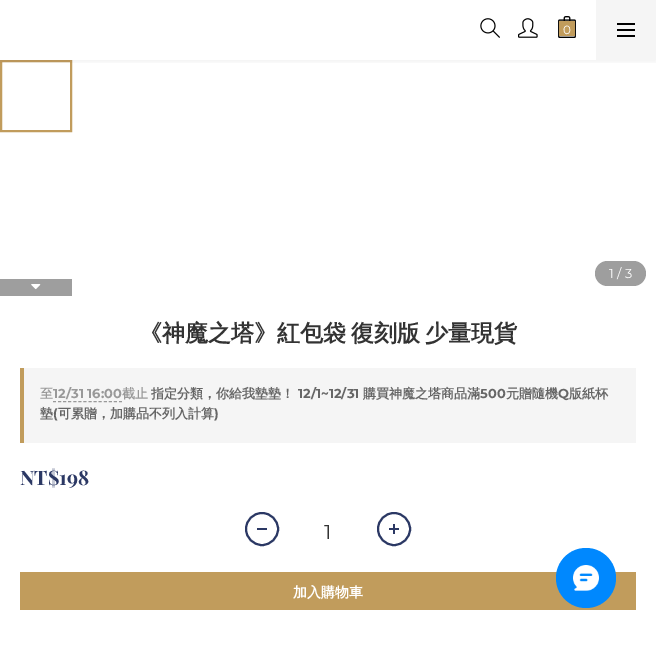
%!PS
<< /PageSize [656 664] /PageUsesTransparency true >> setpagedevice
/mt/moveto load def
/li/lineto load def
/fl/fill load def
/st/stroke load def
/gs/gsave load def
/gr/grestore load def
/lw/setlinewidth load def
/co { dup -16 bitshift 255 div exch dup -8 bitshift 255 and 255 div exch 255 and 255 div setrgbcolor } def
/fn { [ exch dup neg 0 0 3 -1 roll 0 0 ] selectfont } def
/tx { co fn moveto show } def
/bx { co rectfill } def
/al { dup .setfillconstantalpha .setstrokeconstantalpha } def
/ci { newpath 0 360 arc closepath } def
/rr { 5 dict begin { /r /h /w /y /x } { exch def } forall
  x r add y moveto x w add y 2 copy h add r arct x w add y h add x 1 index r arct
  x y h add x y r arct x y 2 copy exch w add exch r arct closepath end } def
/sh { 12 dict begin { /a /b /q /h /w /y /x } { exch def } forall gsave /was 0 def
  9 -2 -9 { dup b mul 4 div /e exch def 1 sub .425 mul 2.718 exch exp 1 add a .99 .min exch div /now exch def
    1 1 now sub 1 was sub div sub al /was now def
    w h .min e 2 mul add 0 gt { x e sub y e sub w e 2 mul add h e 2 mul add
      q e add b .6 mul add w h .min 2 div e add .min 0 .max rr fill } if } for grestore end } def
/im { 5 dict begin { /h /w /y /x /name } { exch def } forall
  gsave x y translate w h scale
  w h 8 [w 0 0 h 0 0] name (r) file false 3 colorimage grestore end } def
0 .pushpdf14devicefilter
0 664 translate 1 -1 scale
4 setmiterlimit
0 0 656 664 16#FFFFFF bx
16#C19C5C co
2 lw
1 61 70 70 rectstroke
gs
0 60 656 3 rectclip
16#000000 co
0 2 656 60 0 3 .06 sh
gr
(media/1.raw) 480 18 20 20 im
(media/2.raw) 518 18 20 20 im
(media/3.raw) 558 16 18 22 im
559 21 16 15 16#C19C5C bx
596 0 60 60 16#F5F5F5 bx
617 29 18 2 16#000000 bx
617 23 18 2 16#000000 bx
617 35 18 2 16#000000 bx
0 279 72 17 16#9E9E9E bx
(media/4.raw) 31 284 10 6 im
595 261 51 25 12.5 rr fl
24 368 612 75 16#F5F5F5 bx
20 368 4 75 16#C19C5C bx
16#999999 co
1 lw
[3 2.08] 0 setdash
53 401.5 mt 122 401.5 li st
16#2B3864 co
2 lw
[] 0 setdash
262 529 16 ci st
257 528 10 2 16#2B3864 bx
394 529 16 ci st
389 528 10 2 16#2B3864 bx
393 524 2 10 16#2B3864 bx
20 572 616 38 16#C19C5C bx
16#0088FE co
586 578 30 ci fl
(media/5.raw) 573 565 26 26 im
(0) 563 34 /Montserrat-Regular 12 16#FFFFFF tx
(1 / 3) 609 278 /Montserrat-Regular 13 16#FFFFFF tx
/WenQuanYiZenHei-Bold 23 fn
16#333333 co
139 341 mt -2 0 32 (《神魔之塔》紅包袋 復刻版 少量現貨) widthshow
(至) 40 398 /WenQuanYiZenHei-Bold 13 16#999999 tx
(12/31 16:00) 53 398 /Montserrat-Bold 13 16#999999 tx
(截止) 122 398 /WenQuanYiZenHei-Bold 13 16#999999 tx
(指定分類，你給我墊墊！) 151 398 /WenQuanYiZenHei-Bold 13 16#666666 tx
(12/1~12/31) 298 398 /Montserrat-Bold 13 16#666666 tx
(購買神魔之塔商品滿) 363 398 /WenQuanYiZenHei-Bold 13 16#666666 tx
(500) 480 398 /Montserrat-Bold 13 16#666666 tx
(元贈隨機) 506 398 /WenQuanYiZenHei-Bold 13 16#666666 tx
(Q) 558 398 /Montserrat-Bold 13 16#666666 tx
(版紙杯) 569 398 /WenQuanYiZenHei-Bold 13 16#666666 tx
(墊) 40 418 /WenQuanYiZenHei-Bold 13 16#666666 tx
(\() 53 418 /Montserrat-Bold 13 16#666666 tx
(可累贈，加購品不列入計算) 58 418 /WenQuanYiZenHei-Bold 13 16#666666 tx
(\)) 214 418 /Montserrat-Bold 13 16#666666 tx
(NT$198) 20 485 /PlayfairDisplay-Bold 20 16#2B3864 tx
(1) 324 539 /Montserrat-Regular 20 16#333333 tx
(加入購物車) 293 597 /WenQuanYiZenHei-Bold 14 16#FFFFFF tx
.poppdf14devicefilter showpage
